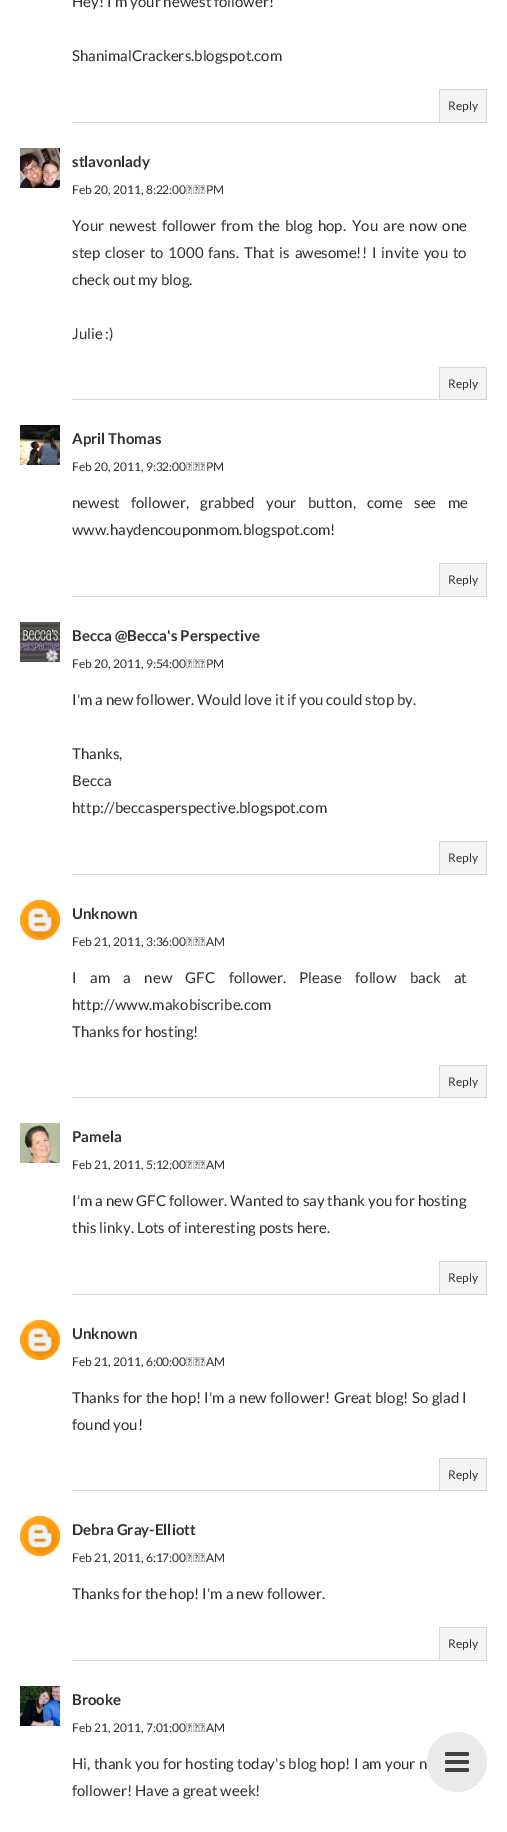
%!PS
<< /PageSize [507 1832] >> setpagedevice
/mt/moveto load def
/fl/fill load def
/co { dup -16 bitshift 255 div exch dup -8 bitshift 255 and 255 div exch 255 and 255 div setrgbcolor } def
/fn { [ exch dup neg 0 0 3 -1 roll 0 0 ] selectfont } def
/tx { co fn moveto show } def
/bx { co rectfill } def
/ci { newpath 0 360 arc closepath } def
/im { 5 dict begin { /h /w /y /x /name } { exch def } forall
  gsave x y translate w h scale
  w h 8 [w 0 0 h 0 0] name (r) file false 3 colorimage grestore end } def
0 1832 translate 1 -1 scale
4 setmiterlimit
0 0 507 1832 16#FFFFFF bx
72 122 415 1 16#D5D5D5 bx
440 90 46 32 16#F4F4F4 bx
439 89 48 1 16#D5D5D5 bx
486 89 1 33 16#D5D5D5 bx
439 89 1 33 16#D5D5D5 bx
(media/1.raw) 20 148 40 40 im
72 399 415 1 16#D5D5D5 bx
440 368 46 31 16#F4F4F4 bx
439 367 48 1 16#D5D5D5 bx
486 367 1 32 16#D5D5D5 bx
439 367 1 32 16#D5D5D5 bx
(media/2.raw) 20 425 40 40 im
72 596 415 1 16#D5D5D5 bx
440 564 46 32 16#F4F4F4 bx
439 563 48 1 16#D5D5D5 bx
486 563 1 33 16#D5D5D5 bx
439 563 1 33 16#D5D5D5 bx
(media/3.raw) 20 622 40 40 im
72 874 415 1 16#D5D5D5 bx
440 842 46 32 16#F4F4F4 bx
439 841 48 1 16#D5D5D5 bx
486 841 1 33 16#D5D5D5 bx
439 841 1 33 16#D5D5D5 bx
(media/4.raw) 20 900 40 40 im
72 1097 415 1 16#D5D5D5 bx
440 1066 46 31 16#F4F4F4 bx
439 1065 48 1 16#D5D5D5 bx
486 1065 1 32 16#D5D5D5 bx
439 1065 1 32 16#D5D5D5 bx
(media/5.raw) 20 1123 40 40 im
72 1294 415 1 16#D5D5D5 bx
440 1262 46 32 16#F4F4F4 bx
439 1261 48 1 16#D5D5D5 bx
486 1261 1 33 16#D5D5D5 bx
439 1261 1 33 16#D5D5D5 bx
(media/6.raw) 20 1320 40 40 im
72 1490 415 1 16#D5D5D5 bx
440 1459 46 31 16#F4F4F4 bx
439 1458 48 1 16#D5D5D5 bx
486 1458 1 32 16#D5D5D5 bx
439 1458 1 32 16#D5D5D5 bx
(media/6.raw) 20 1516 40 40 im
72 1660 415 1 16#D5D5D5 bx
440 1628 46 32 16#F4F4F4 bx
439 1627 48 1 16#D5D5D5 bx
486 1627 1 33 16#D5D5D5 bx
439 1627 1 33 16#D5D5D5 bx
(media/7.raw) 20 1686 40 40 im
16#EAEAEA co
457 1762 30 ci fl
(media/8.raw) 445 1752 24 20 im
(Hey! I'm your newest follower!) 72 7 /Lato-Regular 15 16#313131 tx
(ShanimalCrackers.blogspot.com) 72 61 /Lato-Regular 15 16#313131 tx
(Reply) 448 110 /Lato-Regular 12 16#313131 tx
(stlavonlady) 72 167 /Lato-Bold 15 16#313131 tx
(Feb 20, 2011, 8:22:00 PM) 72 194 /Lato-Regular 12 16#313131 tx
/Lato-Regular 15 fn
72 231 mt 2 0 32 (Your newest follower from the blog hop.) widthshow
352 231 mt 2 0 32 (You are now one) widthshow
72 258 mt 2 0 32 (step closer to 1000 fans.) widthshow
244 258 mt 2 0 32 (That is awesome!!) widthshow
372 258 mt 2 0 32 (I invite you to) widthshow
(check out my blog.) 72 285 /Lato-Regular 15 16#313131 tx
(Julie :\)) 72 339 /Lato-Regular 15 16#313131 tx
(Reply) 448 388 /Lato-Regular 12 16#313131 tx
(April Thomas) 72 444 /Lato-Bold 15 16#313131 tx
(Feb 20, 2011, 9:32:00 PM) 72 471 /Lato-Regular 12 16#313131 tx
/Lato-Regular 15 fn
72 508 mt 8.5 0 32 (newest follower, grabbed your button, come see me) widthshow
(www.haydencouponmom.blogspot.com!) 72 535 /Lato-Regular 15 16#313131 tx
(Reply) 448 584 /Lato-Regular 12 16#313131 tx
(Becca @Becca's Perspective) 72 641 /Lato-Bold 15 16#313131 tx
(Feb 20, 2011, 9:54:00 PM) 72 668 /Lato-Regular 12 16#313131 tx
(I'm a new follower. Would love it if you could stop by.) 72 705 /Lato-Regular 15 16#313131 tx
(Thanks,) 72 759 /Lato-Regular 15 16#313131 tx
(Becca) 72 786 /Lato-Regular 15 16#313131 tx
(http://beccasperspective.blogspot.com) 72 813 /Lato-Regular 15 16#313131 tx
(Reply) 448 862 /Lato-Regular 12 16#313131 tx
(Unknown) 72 919 /Lato-Bold 15 16#313131 tx
(Feb 21, 2011, 3:36:00 AM) 72 946 /Lato-Regular 12 16#313131 tx
/Lato-Regular 15 fn
72 983 mt 10.5 0 32 (I am a new GFC follower.) widthshow
299 983 mt 10.5 0 32 (Please follow back at) widthshow
(http://www.makobiscribe.com) 72 1010 /Lato-Regular 15 16#313131 tx
(Thanks for hosting!) 72 1037 /Lato-Regular 15 16#313131 tx
(Reply) 448 1086 /Lato-Regular 12 16#313131 tx
(Pamela) 72 1142 /Lato-Bold 15 16#313131 tx
(Feb 21, 2011, 5:12:00 AM) 72 1169 /Lato-Regular 12 16#313131 tx
(I'm a new GFC follower. Wanted to say thank you for hosting) 72 1206 /Lato-Regular 15 16#313131 tx
(this linky. Lots of interesting posts here.) 72 1233 /Lato-Regular 15 16#313131 tx
(Reply) 448 1282 /Lato-Regular 12 16#313131 tx
(Unknown) 72 1339 /Lato-Bold 15 16#313131 tx
(Feb 21, 2011, 6:00:00 AM) 72 1366 /Lato-Regular 12 16#313131 tx
/Lato-Regular 15 fn
72 1403 mt .5 0 32 (Thanks for the hop! I'm a new follower! Great blog! So glad I) widthshow
(found you!) 72 1430 /Lato-Regular 15 16#313131 tx
(Reply) 448 1479 /Lato-Regular 12 16#313131 tx
(Debra Gray-Elliott) 72 1535 /Lato-Bold 15 16#313131 tx
(Feb 21, 2011, 6:17:00 AM) 72 1562 /Lato-Regular 12 16#313131 tx
(Thanks for the hop! I'm a new follower.) 72 1599 /Lato-Regular 15 16#313131 tx
(Reply) 448 1648 /Lato-Regular 12 16#313131 tx
(Brooke) 72 1705 /Lato-Bold 15 16#313131 tx
(Feb 21, 2011, 7:01:00 AM) 72 1732 /Lato-Regular 12 16#313131 tx
/Lato-Regular 15 fn
72 1769 mt .5 0 32 (Hi, thank you for hosting today's blog hop! I am your n) widthshow
(follower! Have a great week!) 72 1796 /Lato-Regular 15 16#313131 tx
showpage
